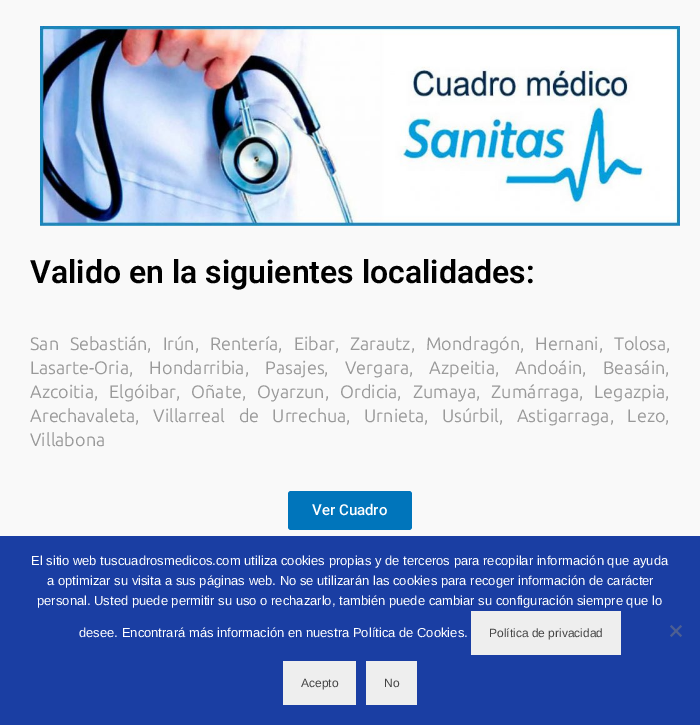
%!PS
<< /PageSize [700 725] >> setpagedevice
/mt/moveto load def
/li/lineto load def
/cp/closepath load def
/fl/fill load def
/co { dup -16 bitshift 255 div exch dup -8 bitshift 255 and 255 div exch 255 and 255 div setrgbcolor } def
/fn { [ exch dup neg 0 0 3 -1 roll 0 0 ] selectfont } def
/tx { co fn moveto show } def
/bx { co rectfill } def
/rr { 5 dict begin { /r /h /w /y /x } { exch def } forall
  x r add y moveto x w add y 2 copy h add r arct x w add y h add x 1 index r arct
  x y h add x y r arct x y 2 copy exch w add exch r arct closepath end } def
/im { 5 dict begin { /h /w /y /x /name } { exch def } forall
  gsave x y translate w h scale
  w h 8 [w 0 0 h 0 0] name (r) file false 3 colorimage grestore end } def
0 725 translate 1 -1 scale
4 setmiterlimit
0 0 700 725 16#F9F9F9 bx
(media/1.raw) 40 26 640 200 im
16#0075BB co
288 491 124 39 3 rr fl
0 536 700 189 16#1A3EA3 bx
471 611 150 44 16#EEEEEE bx
16#4D5F92 co
680.5 625 mt 682 626.5 li 671.5 637 li 670 635.5 li cp fl
670 626.5 mt 671.5 625 li 682 635.5 li 680.5 637 li cp fl
283 661 73 44 16#EEEEEE bx
366 661 51 44 16#EEEEEE bx
(Valido en la siguientes localidades:) 30 283 /Roboto-SemiBold 32 16#000000 tx
/Ubuntu-Regular 18 fn
16#999999 co
30 350 mt 6.5 0 32 (San Sebastián, Irún, Rentería, Eibar, Zarautz, Mondragón, Hernani, Tolosa,) widthshow
30 374 mt 12 0 32 (Lasarte-Oria, Hondarribia, Pasajes, Vergara, Azpeitia, Andoáin, Beasáin,) widthshow
30 398 mt 6.75 0 32 (Azcoitia, Elgóibar, Oñate, Oyarzun, Ordicia, Zumaya, Zumárraga, Legazpia,) widthshow
30 422 mt 9.25 0 32 (Arechavaleta, Villarreal de Urrechua, Urnieta, Usúrbil, Astigarraga, Lezo,) widthshow
(Villabona) 30 446 /Ubuntu-Regular 18 16#999999 tx
(Ver Cuadro) 312 515 /Roboto-Medium 15 16#FFFFFF tx
(El sitio web tuscuadrosmedicos.com utiliza cookies propias y de terceros para recopilar información que ayuda) 31 565 /LiberationSans-Regular 13 16#FFFFFF tx
(a optimizar su visita a sus páginas web. No se utilizarán las cookies para recoger información de carácter) 47 585 /LiberationSans-Regular 13 16#FFFFFF tx
(personal. Usted puede permitir su uso o rechazarlo, también puede cambiar su configuración siempre que lo) 37 605 /LiberationSans-Regular 13 16#FFFFFF tx
(desee. Encontrará más información en nuestra Política de Cookies.) 79 637 /LiberationSans-Regular 13 16#FFFFFF tx
(Política de privacidad) 489 637 /LiberationSans-Regular 12 16#444444 tx
(Acepto) 301 687 /LiberationSans-Regular 12 16#444444 tx
(No) 384 687 /LiberationSans-Regular 12 16#444444 tx
showpage
